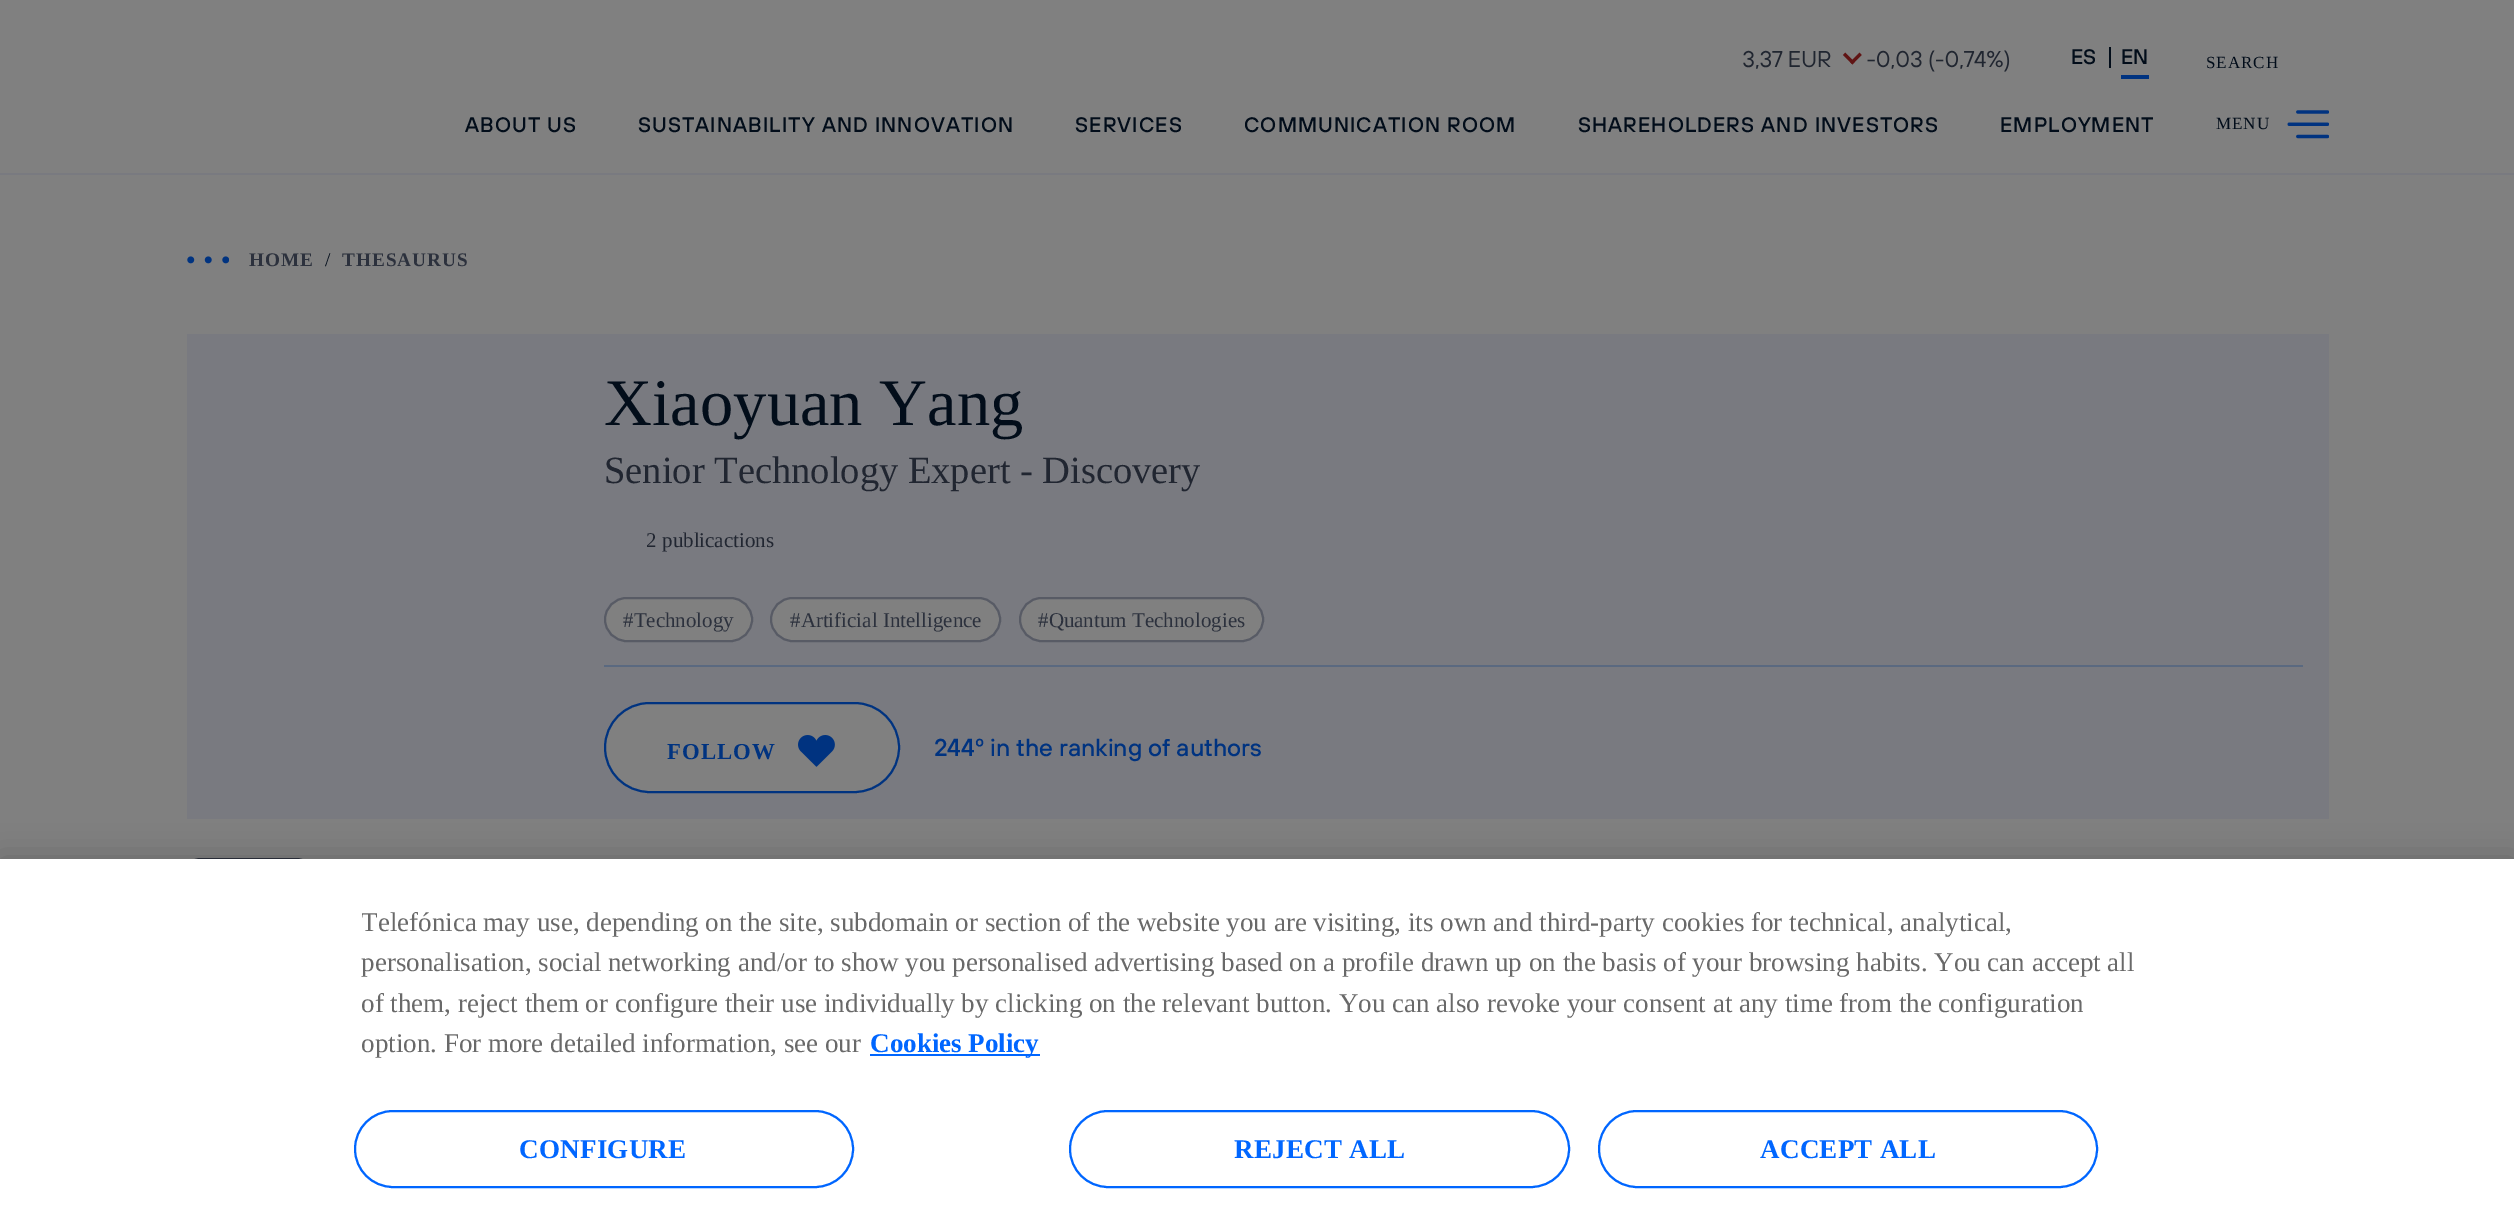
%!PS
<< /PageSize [2514 1231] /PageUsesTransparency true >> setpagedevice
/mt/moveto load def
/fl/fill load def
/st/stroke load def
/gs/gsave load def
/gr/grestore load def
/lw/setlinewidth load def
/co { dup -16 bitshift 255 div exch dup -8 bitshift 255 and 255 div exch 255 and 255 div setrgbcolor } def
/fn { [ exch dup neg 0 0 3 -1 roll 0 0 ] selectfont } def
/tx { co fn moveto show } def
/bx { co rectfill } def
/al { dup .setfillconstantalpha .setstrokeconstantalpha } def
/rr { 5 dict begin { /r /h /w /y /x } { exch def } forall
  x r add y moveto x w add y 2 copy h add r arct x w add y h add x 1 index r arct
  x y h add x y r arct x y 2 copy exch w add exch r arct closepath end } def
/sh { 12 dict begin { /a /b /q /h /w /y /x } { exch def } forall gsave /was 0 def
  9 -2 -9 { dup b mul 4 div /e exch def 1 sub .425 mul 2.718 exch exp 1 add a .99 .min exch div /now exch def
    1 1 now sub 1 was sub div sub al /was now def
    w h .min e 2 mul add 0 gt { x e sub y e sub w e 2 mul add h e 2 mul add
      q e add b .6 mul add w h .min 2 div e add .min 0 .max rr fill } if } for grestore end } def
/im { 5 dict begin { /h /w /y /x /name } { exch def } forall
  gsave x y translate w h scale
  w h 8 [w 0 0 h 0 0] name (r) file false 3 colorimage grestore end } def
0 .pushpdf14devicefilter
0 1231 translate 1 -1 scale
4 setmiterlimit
0 0 2514 1231 16#808080 bx
0 173 2514 2 16#797A80 bx
(media/1.raw) 1743 50 267 22 im
2109 47 2 21 16#020D1A bx
2121 75 28 4 16#003380 bx
(media/2.raw) 2287 110 42 29 im
(media/3.raw) 187 256 42 8 im
187 334 2142 485 16#797A80 bx
604 665 1699 2 16#5A6980 bx
16#808080 co
605 598 147 43 21.5 rr gs fl gr
16#585B65 co
2 lw
st
16#808080 co
771 598 229 43 21.5 rr gs fl gr
16#585B65 co
st
16#808080 co
1020 598 243 43 21.5 rr gs fl gr
16#585B65 co
st
16#808080 co
605 703 294 89 44.5 rr gs fl gr
16#003380 co
st
(media/4.raw) 798 735 37 32 im
16#2C313D co
188 859 121 24 12 rr st
16#000000 co
0 859 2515 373 0 16 .2 sh
0 859 2514 372 16#FFFFFF bx
870 1054 170 2 16#0066FF bx
355 1111 498 76 38 rr st
1070 1111 499 76 38 rr st
1599 1111 498 76 38 rr st
(ES) 2071 64 /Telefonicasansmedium-Medium 21 16#020D1A tx
(EN) 2121 64 /Telefonicasansmedium-Medium 21 16#020D1A tx
/LiberationSerif-Regular 17 fn
2206 68 mt 1 0 (SEARCH) ashow
/Telefonicasansmedium-Medium 21 fn
465 132 mt 1.05 0 (ABOUT US) ashow
638 132 mt 1.05 0 (SUSTAINABILITY AND INNOVATION) ashow
1075 132 mt 1.05 0 (SERVICES) ashow
1244 132 mt 1.05 0 (COMMUNICATION ROOM) ashow
1578 132 mt 1.05 0 (SHAREHOLDERS AND INVESTORS) ashow
2000 132 mt 1.05 0 (EMPLOYMENT) ashow
/LiberationSerif-Regular 17 fn
2216 129 mt 1 0 (MENU) ashow
/LiberationSerif-Bold 19.25 fn
16#2C313D co
249 266 mt 1 0 (HOME) ashow
/LiberationSerif-Regular 19.25 fn
16#020D1A co
325 266 mt 1 0 (/) ashow
/LiberationSerif-Bold 19.25 fn
16#2C313D co
342 266 mt 1 0 (THESAURUS) ashow
(Xiaoyuan Yang) 604 425 /LiberationSerif-Regular 66.5 16#020D1A tx
(Senior Technology Expert - Discovery) 604 483 /LiberationSerif-Regular 38.5 16#212631 tx
(2) 646 547 /LiberationSerif-Regular 21 16#212631 tx
(publicactions) 662 547 /LiberationSerif-Regular 21 16#212631 tx
(#Technology) 623 627 /LiberationSerif-Regular 21 16#2C313D tx
(#Artificial Intelligence) 790 627 /LiberationSerif-Regular 21 16#2C313D tx
(#Quantum Technologies) 1038 627 /LiberationSerif-Regular 21 16#2C313D tx
/LiberationSerif-Bold 22.75 fn
16#003380 co
667 759 mt 1 0 (FOLLOW) ashow
(244º in the ranking of authors) 934 756 /Telefonicasansmedium-Medium 24.5 16#003380 tx
gs
362 901 1792 181 rectclip
(Telefónica may use, depending on the site, subdomain or section of the website you are visiting, its own and third-party cookies for technical, analytical,) 361 931 /LiberationSerif-Regular 27.03 16#696969 tx
gr
(personalisation, social networking and/or to show you personalised advertising based on a profile drawn up on the basis of your browsing habits. You can accept all) 361 971 /LiberationSerif-Regular 27.03 16#696969 tx
(of them, reject them or configure their use individually by clicking on the relevant button. You can also revoke your consent at any time from the configuration) 361 1012 /LiberationSerif-Regular 27.03 16#696969 tx
(option. For more detailed information, see our) 361 1052 /LiberationSerif-Regular 27.03 16#696969 tx
(Cookies Policy) 870 1052 /LiberationSerif-Bold 27.03 16#0066FF tx
519 1158 mt .25 0 (CONFIGURE) ashow
1234 1158 mt .25 0 (REJECT ALL) ashow
1760 1158 mt .25 0 (ACCEPT ALL) ashow
.poppdf14devicefilter showpage
